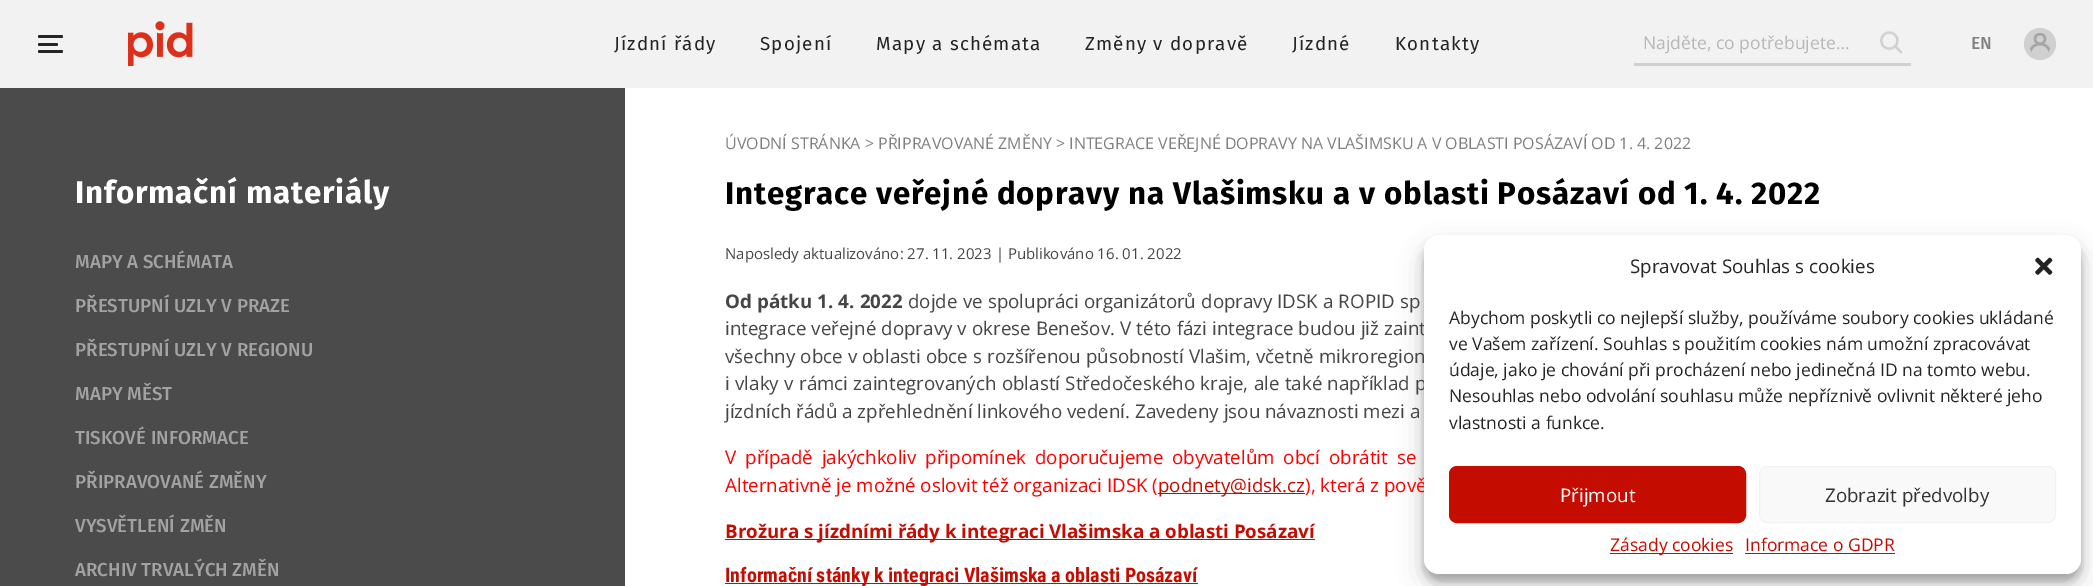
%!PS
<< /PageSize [2093 586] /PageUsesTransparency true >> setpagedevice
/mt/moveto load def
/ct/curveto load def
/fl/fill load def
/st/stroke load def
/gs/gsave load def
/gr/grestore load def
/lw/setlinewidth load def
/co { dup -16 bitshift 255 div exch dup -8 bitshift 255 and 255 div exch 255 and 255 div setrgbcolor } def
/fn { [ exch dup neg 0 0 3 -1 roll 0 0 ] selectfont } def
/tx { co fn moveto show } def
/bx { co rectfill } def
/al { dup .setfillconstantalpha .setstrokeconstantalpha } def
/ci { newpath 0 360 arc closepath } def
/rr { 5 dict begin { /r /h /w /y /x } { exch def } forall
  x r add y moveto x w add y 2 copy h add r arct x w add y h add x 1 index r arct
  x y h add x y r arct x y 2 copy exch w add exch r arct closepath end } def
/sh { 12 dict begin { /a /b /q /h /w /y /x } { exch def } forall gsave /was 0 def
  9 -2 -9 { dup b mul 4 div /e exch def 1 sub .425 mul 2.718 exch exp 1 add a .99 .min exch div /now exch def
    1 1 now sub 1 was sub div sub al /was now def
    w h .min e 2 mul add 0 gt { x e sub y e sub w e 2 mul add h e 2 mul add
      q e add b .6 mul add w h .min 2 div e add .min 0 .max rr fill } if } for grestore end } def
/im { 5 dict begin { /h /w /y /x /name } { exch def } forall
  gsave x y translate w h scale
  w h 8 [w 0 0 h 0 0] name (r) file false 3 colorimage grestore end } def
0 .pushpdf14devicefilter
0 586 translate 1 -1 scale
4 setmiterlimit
0 0 2093 586 16#FFFFFF bx
0 0 2093 88 16#F2F2F2 bx
16#252525 co
38 43 20 3 1.5 rr fl
38 35 25 3 1.5 rr fl
38 50 25 3 1.5 rr fl
(media/1.raw) 128 21 65 45 im
1634 63 277 3 16#D0D0D0 bx
(media/2.raw) 1880 31 23 23 im
2040 44 16 ci fl
gs
2029 33 22 22 11 rr clip newpath
16#A6A6A6 co
2.5 lw
2040 39 5 ci st
1 setlinecap
1 setlinejoin
2050 54 mt 2050 40.5 2030 40.5 2030 54 ct st
gr
75 88 550 498 16#4B4B4B bx
1158 493 147 1 16#C40C00 bx
725 539 590 1 16#C40C00 bx
725 583 473 1 16#C40C00 bx
16#000000 co
1424 243 657 338 15 4 .23 sh
1424 248 657 338 15 12.5 .19 sh
/FiraSans-Regular 18.75 fn
16#252525 co
614 50 mt 1.2 0 (Jízdní řády) ashow
760 50 mt 1.2 0 (Spojení) ashow
876 50 mt 1.2 0 (Mapy a schémata) ashow
1085 50 mt 1.2 0 (Změny v dopravě) ashow
1292 50 mt 1.2 0 (Jízdné) ashow
1395 50 mt 1.2 0 (Kontakty) ashow
(Najděte, co potřebujete…) 1643 49 /OpenSans-Regular 17.5 16#B7B7B7 tx
(EN) 1971 49 /FiraSans-Medium 17.5 16#808080 tx
/FiraSans-Bold 31.25 fn
16#FFFFFF co
75 203 mt .8 0 (Informační materiály) ashow
(MAPY A SCHÉMATA) 75 268 /FiraSans-Medium 18.75 16#A2A2A2 tx
(PŘESTUPNÍ UZLY V PRAZE) 75 312 /FiraSans-Medium 18.75 16#A2A2A2 tx
(PŘESTUPNÍ UZLY V REGIONU) 75 356 /FiraSans-Medium 18.75 16#A2A2A2 tx
(MAPY MĚST) 75 400 /FiraSans-Medium 18.75 16#A2A2A2 tx
(TISKOVÉ INFORMACE) 75 444 /FiraSans-Medium 18.75 16#A2A2A2 tx
(PŘIPRAVOVANÉ ZMĚNY) 75 488 /FiraSans-Medium 18.75 16#A2A2A2 tx
(VYSVĚTLENÍ ZMĚN) 75 532 /FiraSans-Medium 18.75 16#A2A2A2 tx
(ARCHIV TRVALÝCH ZMĚN) 75 576 /FiraSans-Medium 18.75 16#A2A2A2 tx
0 88 75 498 16#4B4B4B bx
(ÚVODNÍ STRÁNKA > PŘIPRAVOVANÉ ZMĚNY > INTEGRACE VEŘEJNÉ DOPRAVY NA VLAŠIMSKU A V OBLASTI POSÁZAVÍ OD 1. 4. 2022) 725 149 /OpenSans-Regular 16 16#808080 tx
/FiraSans-Bold 31.25 fn
16#000000 co
725 204 mt .8 0 (Integrace veřejné dopravy na Vlašimsku a v oblasti Posázaví od 1. 4. 2022) ashow
(Naposledy aktualizováno: 27. 11. 2023 | Publikováno 16. 01. 2022) 725 259 /OpenSans-Regular 15 16#464646 tx
/OpenSans-Bold 18.75 fn
725 308 mt .25 0 32 (Od pátku 1. 4. 2022) widthshow
/OpenSans-Regular 18.75 fn
908 308 mt .25 0 32 (dojde ve spolupráci organizátorů dopravy IDSK a ROPID sp) widthshow
725 335 mt .25 0 32 (integrace veřejné dopravy v okrese Benešov. V této fázi integrace budou již zaint) widthshow
725 363 mt .25 0 32 (všechny obce v oblasti obce s rozšířenou působností Vlašim, včetně mikroregion) widthshow
725 390 mt .5 0 32 (i vlaky v rámci zaintegrovaných oblastí Středočeského kraje, ale také například p) widthshow
(jízdních řádů a zpřehlednění linkového vedení. Zavedeny jsou návaznosti mezi a) 725 418 /OpenSans-Regular 18.75 16#464646 tx
16#FF0000 co
725 464 mt 4 0 32 (V případě jakýchkoliv připomínek doporučujeme obyvatelům obcí obrátit se) widthshow
(Alternativně je možné oslovit též organizaci IDSK \() 725 492 /OpenSans-Regular 18.75 16#FF0000 tx
(podnety@idsk.cz) 1158 492 /OpenSans-Regular 18.75 16#C40C00 tx
(\), která z pově) 1305 492 /OpenSans-Regular 18.75 16#FF0000 tx
(Brožura s jízdními řády k integraci Vlašimska a oblasti Posázaví) 725 538 /OpenSans-Bold 18.75 16#C40C00 tx
(Informační stánky k integraci Vlašimska a oblasti Posázaví) 725 582 /RobotoCondensed-Bold 20 16#C40C00 tx
16#FFFFFF co
1424 235 657 339 15 rr fl
(Spravovat Souhlas s cookies) 1630 273 /OpenSans-Regular 18.75 16#252525 tx
(media/3.raw) 2035 257 18 18 im
(Abychom poskytli co nejlepší služby, používáme soubory cookies ukládané) 1449 324 /OpenSans-Regular 17.5 16#252525 tx
(ve Vašem zařízení. Souhlas s použitím cookies nám umožní zpracovávat) 1449 350 /OpenSans-Regular 17.5 16#252525 tx
(údaje, jako je chování při procházení nebo jedinečná ID na tomto webu.) 1449 376 /OpenSans-Regular 17.5 16#252525 tx
(Nesouhlas nebo odvolání souhlasu může nepříznivě ovlivnit některé jeho) 1449 402 /OpenSans-Regular 17.5 16#252525 tx
(vlastnosti a funkce.) 1449 429 /OpenSans-Regular 17.5 16#252525 tx
16#C40C00 co
1449.5 466.5 296 56 7.5 rr gs fl gr
st
(Přijmout) 1560 502 /OpenSans-Regular 18.75 16#FFFFFF tx
16#F9F9F9 co
1759.5 466.5 296 56 7.5 rr gs fl gr
16#F2F2F2 co
st
(Zobrazit předvolby) 1825 502 /OpenSans-Regular 18.75 16#333333 tx
1610 553 123 1 16#C40C00 bx
(Zásady cookies) 1610 551 /OpenSans-Regular 17.5 16#C40C00 tx
(Informace o GDPR) 1745 551 /OpenSans-Regular 17.5 16#C40C00 tx
1745 553 150 1 16#C40C00 bx
.poppdf14devicefilter showpage
